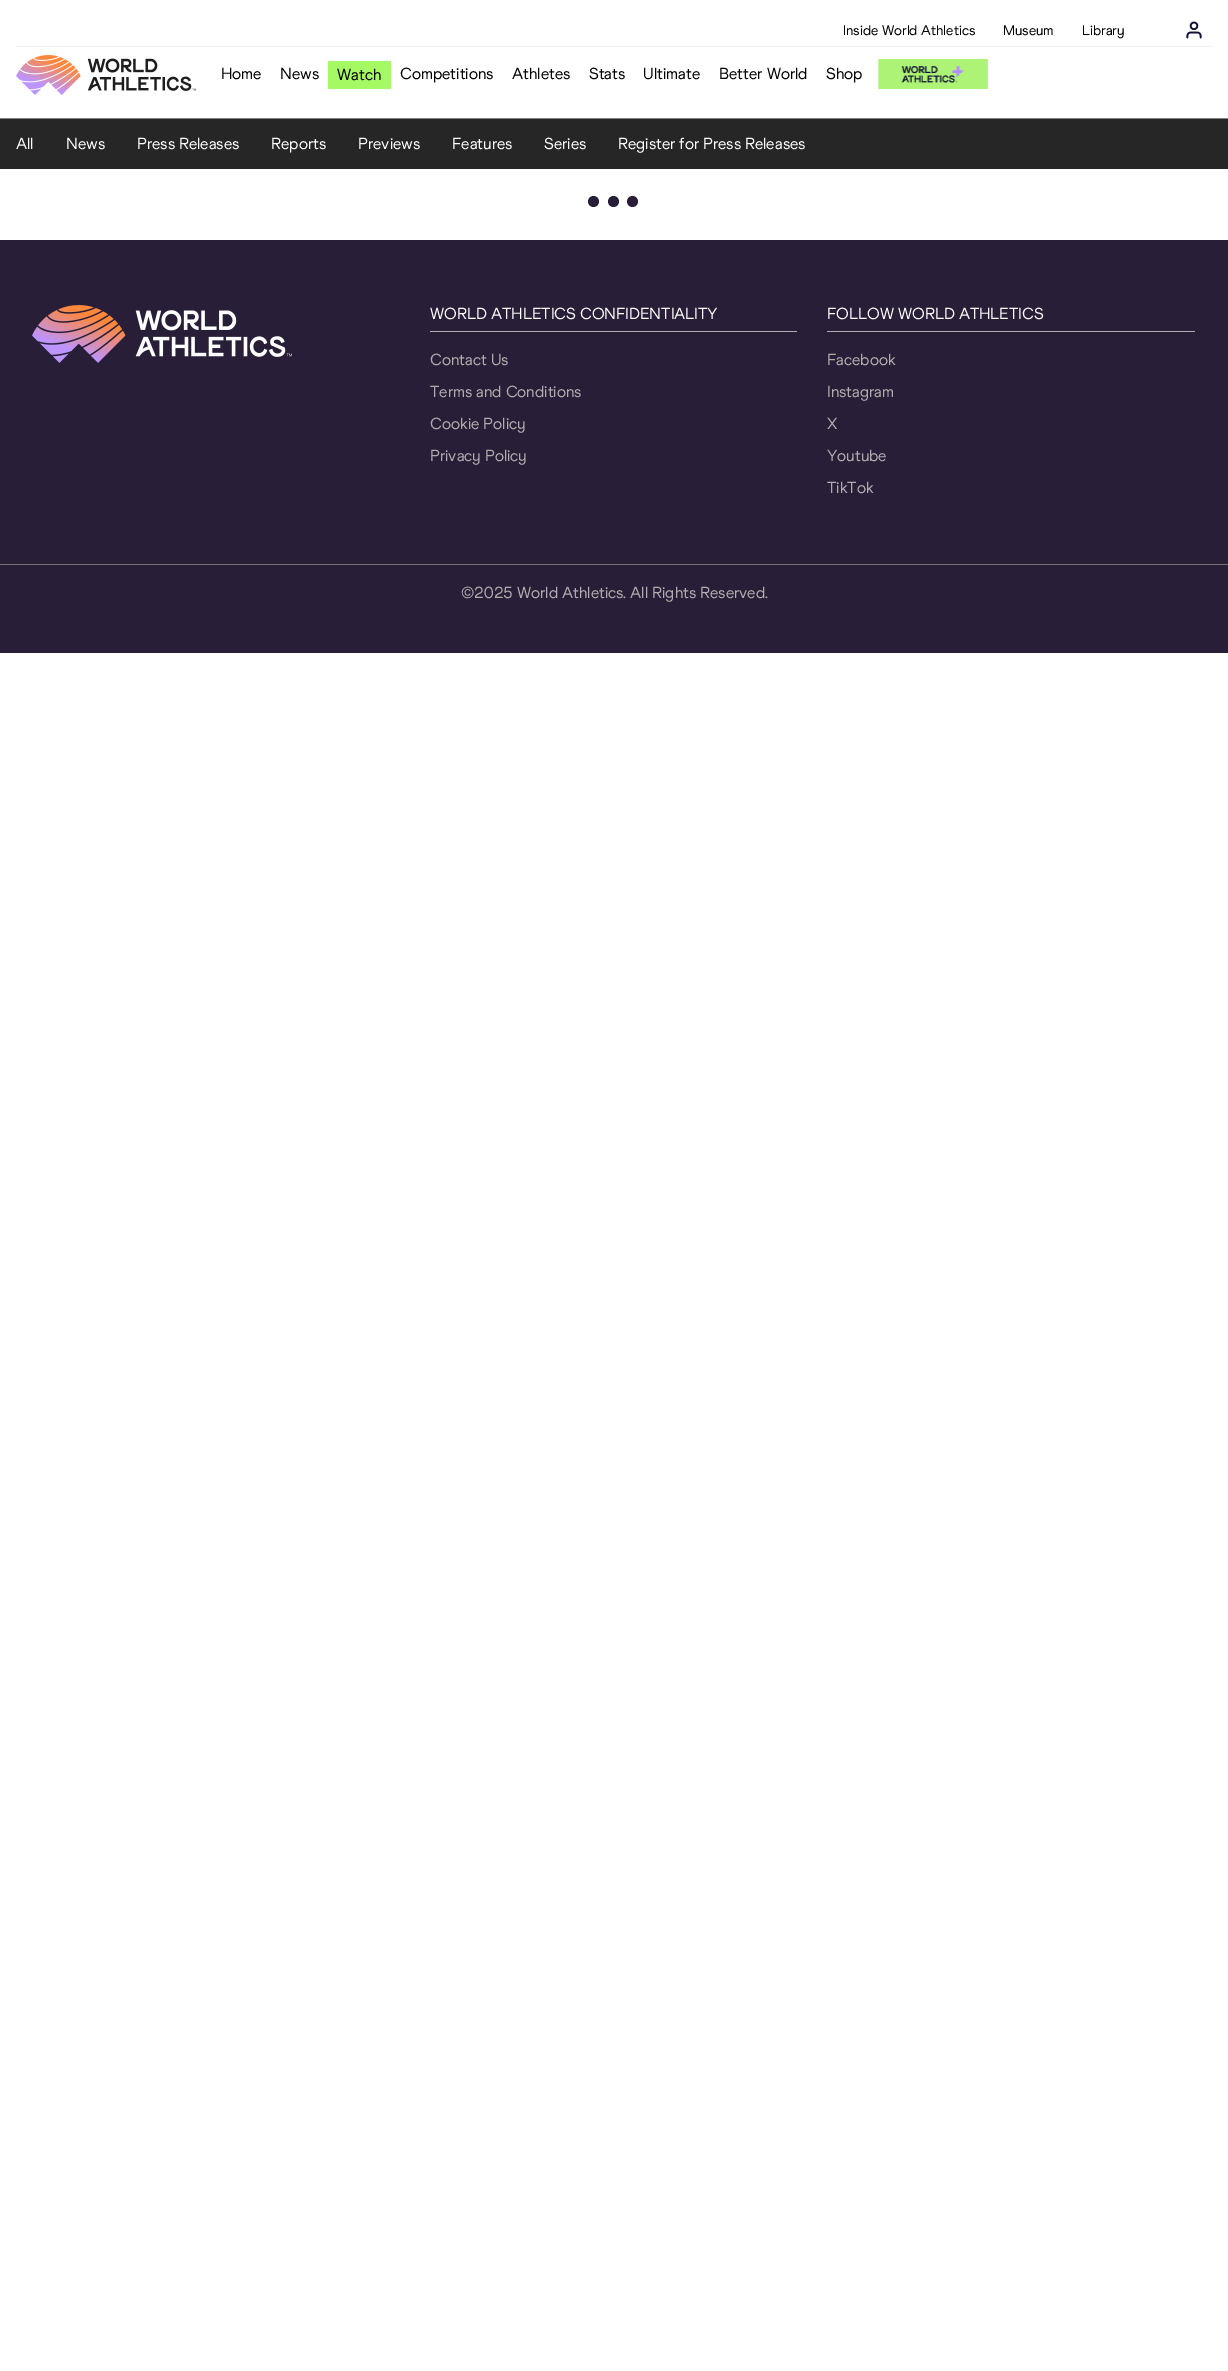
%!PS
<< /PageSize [1228 2371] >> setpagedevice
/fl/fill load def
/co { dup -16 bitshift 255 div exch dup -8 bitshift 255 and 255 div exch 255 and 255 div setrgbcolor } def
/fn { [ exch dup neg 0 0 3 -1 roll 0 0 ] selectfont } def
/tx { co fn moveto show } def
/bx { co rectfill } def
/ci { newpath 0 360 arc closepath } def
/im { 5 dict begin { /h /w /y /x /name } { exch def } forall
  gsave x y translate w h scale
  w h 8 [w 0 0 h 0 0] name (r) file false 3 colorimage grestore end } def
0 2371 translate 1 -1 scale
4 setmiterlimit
0 0 1228 2371 16#FFFFFF bx
16 46 1196 1 16#F0F0F0 bx
(media/1.raw) 1186 21 16 18 im
(media/2.raw) 16 55 180 40 im
328 61 63 28 16#A5FA64 bx
(media/3.raw) 878 59 110 30 im
0 119 1228 50 16#262626 bx
0 118 1228 1 16#818181 bx
16#281E37 co
593.5 201.5 5.5 ci fl
613.5 201.5 5.5 ci fl
632.5 201.5 5.5 ci fl
0 240 1228 413 16#281E37 bx
(media/4.raw) 32 305 260 58 im
430 331 367 1 16#B2ADAD bx
827 331 368 1 16#B2ADAD bx
0 564 1228 1 16#707070 bx
(Inside World Athletics) 843 35 /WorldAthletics-Regular 14 16#000000 tx
(Museum) 1003 35 /WorldAthletics-Regular 14 16#000000 tx
(Library) 1082 35 /WorldAthletics-Regular 14 16#000000 tx
(Home) 221 79 /WorldAthletics-Regular 16 16#000000 tx
(News) 280 79 /WorldAthletics-Regular 16 16#000000 tx
(Watch) 337 80 /WorldAthletics-Regular 16 16#000000 tx
(Competitions) 400 79 /WorldAthletics-Regular 16 16#000000 tx
(Athletes) 512 79 /WorldAthletics-Regular 16 16#000000 tx
(Stats) 589 79 /WorldAthletics-Regular 16 16#000000 tx
(Ultimate) 643 79 /WorldAthletics-Regular 16 16#000000 tx
(Better World) 719 79 /WorldAthletics-Regular 16 16#000000 tx
(Shop) 826 79 /WorldAthletics-Regular 16 16#000000 tx
(All) 16 149 /WorldAthletics-Regular 16 16#FFFFFF tx
(News) 66 149 /WorldAthletics-Regular 16 16#FFFFFF tx
(Press Releases) 137 149 /WorldAthletics-Regular 16 16#FFFFFF tx
(Reports) 271 149 /WorldAthletics-Regular 16 16#FFFFFF tx
(Previews) 358 149 /WorldAthletics-Regular 16 16#FFFFFF tx
(Features) 452 149 /WorldAthletics-Regular 16 16#FFFFFF tx
(Series) 544 149 /WorldAthletics-Regular 16 16#FFFFFF tx
(Register for Press Releases) 618 149 /WorldAthletics-Regular 16 16#FFFFFF tx
(WORLD ATHLETICS CONFIDENTIALITY) 430 319 /WorldAthletics-Regular 16 16#FFFFFF tx
(Contact Us) 430 365 /WorldAthletics-Regular 16 16#B2ADAD tx
(Terms and Conditions) 430 397 /WorldAthletics-Regular 16 16#B2ADAD tx
(Cookie Policy) 430 429 /WorldAthletics-Regular 16 16#B2ADAD tx
(Privacy Policy) 430 461 /WorldAthletics-Regular 16 16#B2ADAD tx
(FOLLOW WORLD ATHLETICS) 827 319 /WorldAthletics-Regular 16 16#FFFFFF tx
(Facebook) 827 365 /WorldAthletics-Regular 16 16#B2ADAD tx
(Instagram) 827 397 /WorldAthletics-Regular 16 16#B2ADAD tx
(X) 827 429 /WorldAthletics-Regular 16 16#B2ADAD tx
(Youtube) 827 461 /WorldAthletics-Regular 16 16#B2ADAD tx
(TikTok) 827 493 /WorldAthletics-Regular 16 16#B2ADAD tx
(©2025 World Athletics. All Rights Reserved.) 461 598 /WorldAthletics-Regular 16 16#B2ADAD tx
showpage
